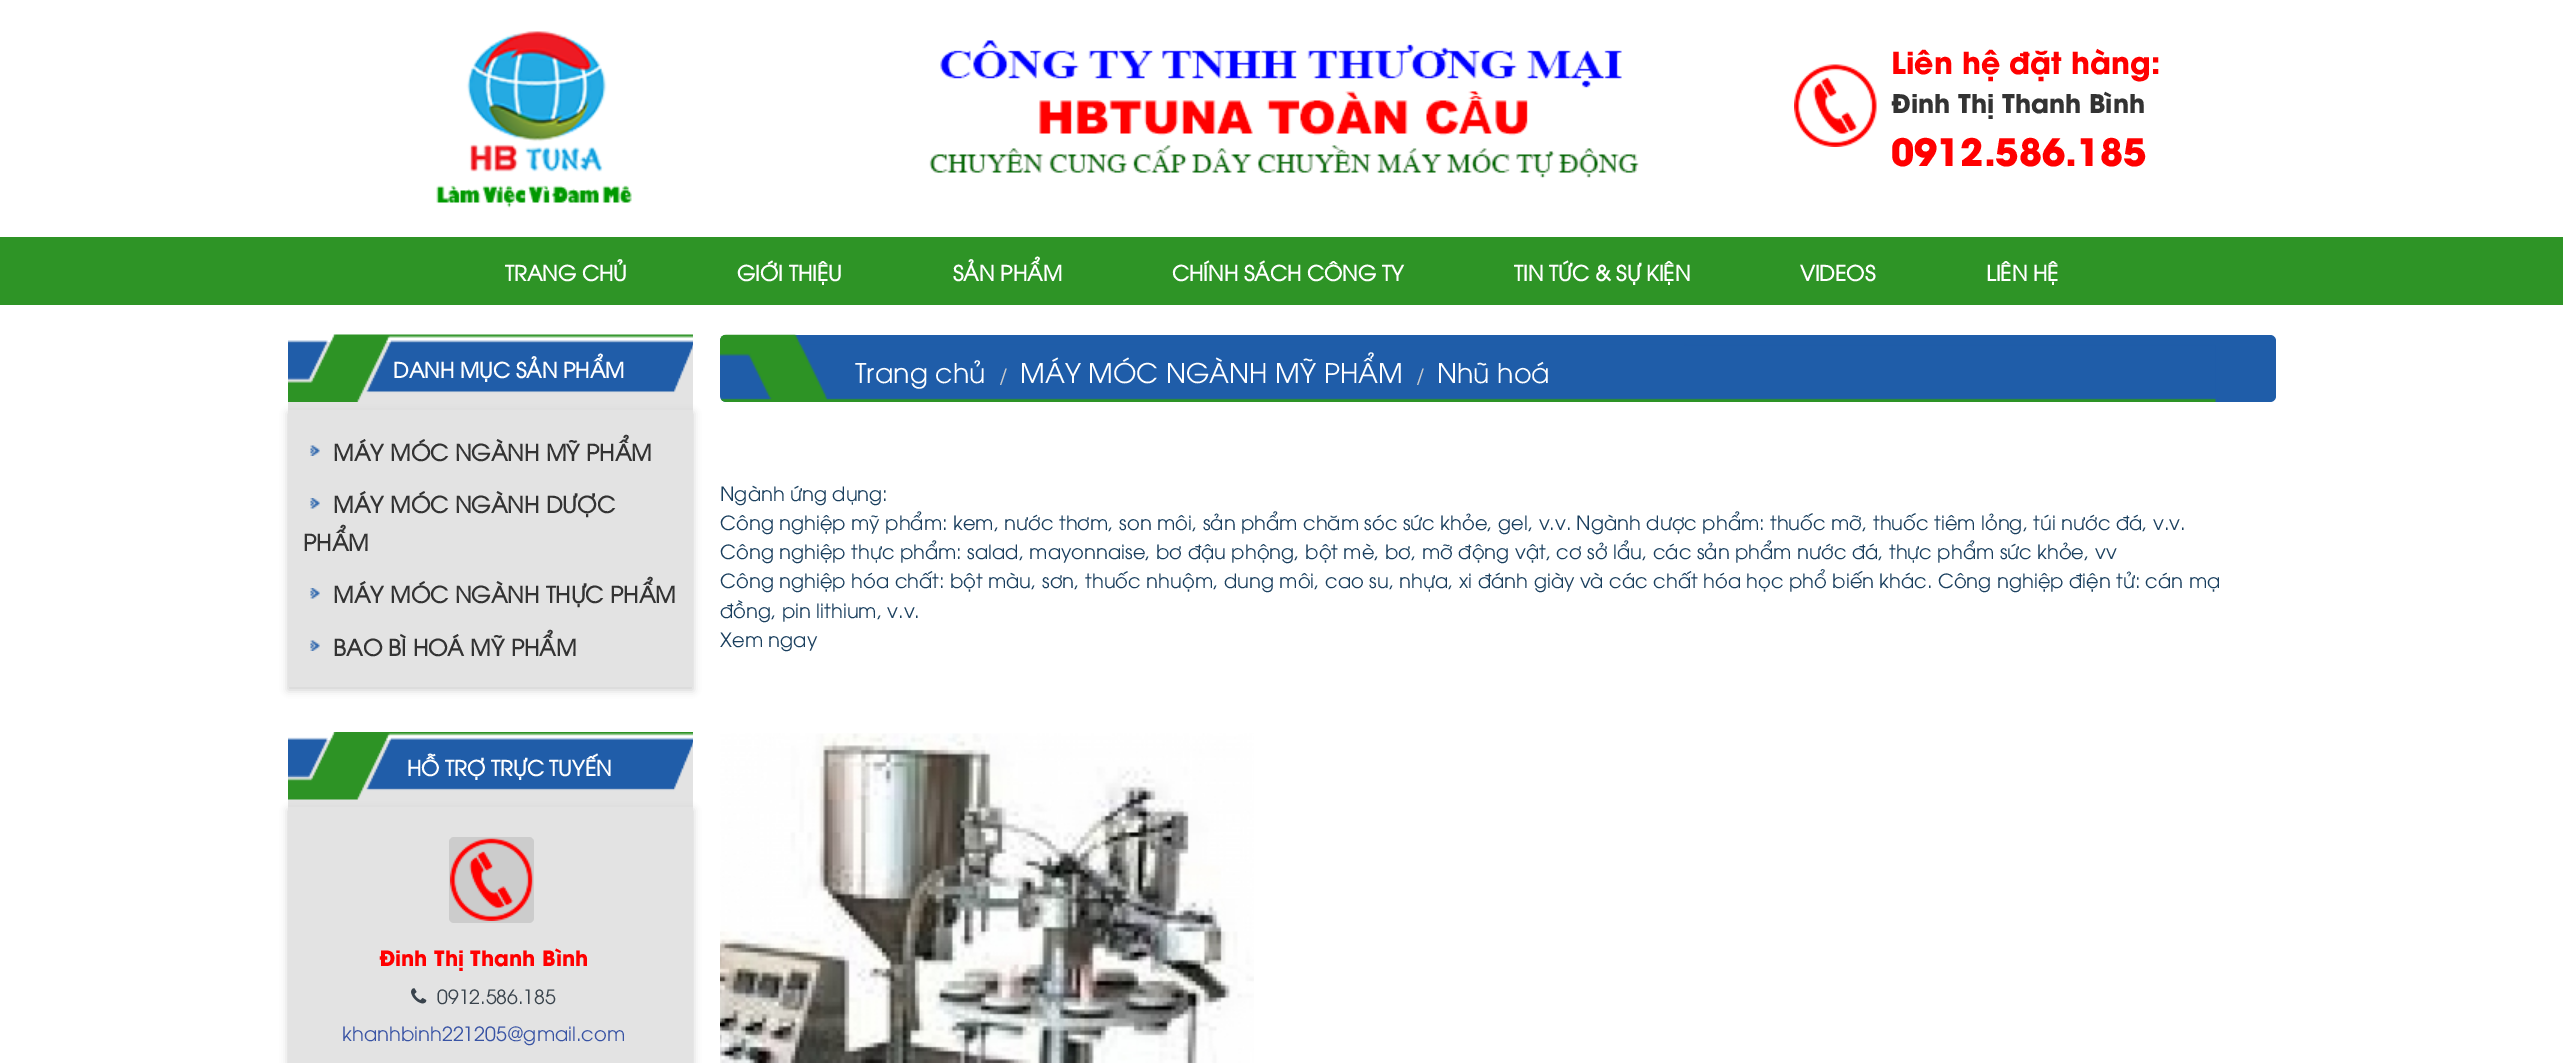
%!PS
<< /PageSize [2563 1063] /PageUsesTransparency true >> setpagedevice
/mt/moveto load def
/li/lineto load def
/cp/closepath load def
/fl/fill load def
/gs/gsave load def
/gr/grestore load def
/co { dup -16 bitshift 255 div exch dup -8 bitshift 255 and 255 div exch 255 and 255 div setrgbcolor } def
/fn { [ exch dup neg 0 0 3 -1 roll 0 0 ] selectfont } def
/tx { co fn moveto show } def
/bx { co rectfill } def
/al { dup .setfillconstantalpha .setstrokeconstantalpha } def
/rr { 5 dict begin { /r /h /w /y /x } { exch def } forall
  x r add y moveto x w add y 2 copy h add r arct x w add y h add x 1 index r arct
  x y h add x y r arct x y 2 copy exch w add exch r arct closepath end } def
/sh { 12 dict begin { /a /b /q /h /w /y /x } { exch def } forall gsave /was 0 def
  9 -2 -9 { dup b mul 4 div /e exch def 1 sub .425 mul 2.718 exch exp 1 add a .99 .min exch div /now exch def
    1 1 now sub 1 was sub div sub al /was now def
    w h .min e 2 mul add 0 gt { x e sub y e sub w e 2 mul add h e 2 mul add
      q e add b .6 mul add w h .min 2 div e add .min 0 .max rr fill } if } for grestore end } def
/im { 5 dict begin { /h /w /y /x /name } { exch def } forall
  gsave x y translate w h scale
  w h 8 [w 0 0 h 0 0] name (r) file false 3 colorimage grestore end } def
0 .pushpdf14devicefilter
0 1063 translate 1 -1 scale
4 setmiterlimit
0 0 2563 1063 16#FFFFFF bx
(media/1.raw) 436 31 196 177 im
(media/2.raw) 929 40 710 138 im
(media/3.raw) 1794 64 83 83 im
0 237 2563 68 16#2E9426 bx
288 342 405 345 16#E3E3E3 bx
gs
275 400 mt 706 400 li 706 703 li 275 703 li cp 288 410 mt 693 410 li 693 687 li 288 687 li cp eoclip newpath
16#CCCCCC co
288 413 405 277 0 4 1 sh
gr
(media/4.raw) 288 334 405 68 im
(media/5.raw) 310 445 10 11 im
(media/6.raw) 310 498 10 11 im
(media/6.raw) 310 588 10 11 im
(media/5.raw) 310 640 10 11 im
288 740 405 323 16#E3E3E3 bx
gs
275 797 mt 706 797 li 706 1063 li 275 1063 li cp 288 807 mt 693 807 li 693 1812 li 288 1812 li cp eoclip newpath
16#CCCCCC co
288 810 405 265 0 4 1 sh
gr
(media/7.raw) 288 732 405 68 im
16#CCCCCC co
449 837 85 86 5 rr fl
(media/8.raw) 450 838 83 83 im
(media/9.raw) 411 988 16 16 im
16#1F5DA9 co
720 335 1556 67 6 rr fl
(media/10.raw) 720 334 1496 68 im
(media/11.raw) 720 733 534 330 im
(Liên hệ đặt hàng:) 1891 74 /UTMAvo-Bold 30 16#FF0000 tx
(Đinh Thị Thanh Bình) 1891 113 /UTMAvo-Bold 25.5 16#333333 tx
(0912.586.185) 1891 166 /UTMAvo-Bold 37.5 16#FF0000 tx
(TRANG CHỦ) 505 281 /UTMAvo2-Bold 21 16#FFFFFF tx
(GIỚI THIỆU) 737 281 /UTMAvo2-Bold 21 16#FFFFFF tx
(SẢN PHẨM) 953 281 /UTMAvo2-Bold 21 16#FFFFFF tx
(CHÍNH SÁCH CÔNG TY) 1172 281 /UTMAvo2-Bold 21 16#FFFFFF tx
(TIN TỨC & SỰ KIỆN) 1514 281 /UTMAvo2-Bold 21 16#FFFFFF tx
(VIDEOS) 1800 281 /UTMAvo2-Bold 21 16#FFFFFF tx
(LIÊN HỆ) 1986 281 /UTMAvo2-Bold 21 16#FFFFFF tx
(DANH MỤC SẢN PHẨM) 393 378 /UTMAvo2-Bold 21 16#FFFFFF tx
(MÁY MÓC NGÀNH MỸ PHẨM) 333 461 /UTMAvo2-Bold 22.5 16#333333 tx
(MÁY MÓC NGÀNH DƯỢC) 333 513 /UTMAvo2-Bold 22.5 16#333333 tx
(PHẨM) 303 551 /UTMAvo2-Bold 22.5 16#333333 tx
(MÁY MÓC NGÀNH THỰC PHẨM) 333 603 /UTMAvo2-Bold 22.5 16#333333 tx
(BAO BÌ HOÁ MỸ PHẨM) 333 656 /UTMAvo2-Bold 22.5 16#333333 tx
(HỖ TRỢ TRỰC TUYẾN) 407 776 /UTMAvo2-Bold 21 16#FFFFFF tx
(Đinh Thị Thanh Bình) 379 966 /UTMAvo-Bold 21 16#FF0000 tx
(0912.586.185) 437 1004 /UTMAvo-Regular 19.5 16#39434C tx
(khanhbinh221205@gmail.com) 342 1041 /UTMAvo-Regular 19.5 16#3853A4 tx
(Trang chủ) 855 383 /UTMAvo-Regular 27 16#FFFFFF tx
(/) 999 383 /UTMAvo-Regular 19.5 16#CCCCCC tx
(MÁY MÓC NGÀNH MỸ PHẨM) 1020 383 /UTMAvo-Regular 27 16#FFFFFF tx
(/) 1416 383 /UTMAvo-Regular 19.5 16#CCCCCC tx
(Nhũ hoá) 1437 383 /UTMAvo-Regular 27 16#FFFFFF tx
(Ngành ứng dụng:) 720 501 /UTMAvo-Regular 19.5 16#1A3F5E tx
(Công nghiệp mỹ phẩm: kem, nước thơm, son môi, sản phẩm chăm sóc sức khỏe, gel, v.v. Ngành dược phẩm: thuốc mỡ, thuốc tiêm lỏng, túi nước đá, v.v.) 720 530 /UTMAvo-Regular 19.5 16#1A3F5E tx
(Công nghiệp thực phẩm: salad, mayonnaise, bơ đậu phộng, bột mè, bơ, mỡ động vật, cơ sở lẩu, các sản phẩm nước đá, thực phẩm sức khỏe, vv) 720 559 /UTMAvo-Regular 19.5 16#1A3F5E tx
(Công nghiệp hóa chất: bột màu, sơn, thuốc nhuộm, dung môi, cao su, nhựa, xi đánh giày và các chất hóa học phổ biến khác. Công nghiệp điện tử: cán mạ) 720 588 /UTMAvo-Regular 19.5 16#1A3F5E tx
(đồng, pin lithium, v.v.) 720 618 /UTMAvo-Regular 19.5 16#1A3F5E tx
(Xem ngay) 720 647 /UTMAvo-Regular 19.5 16#1A3F5E tx
.poppdf14devicefilter showpage
